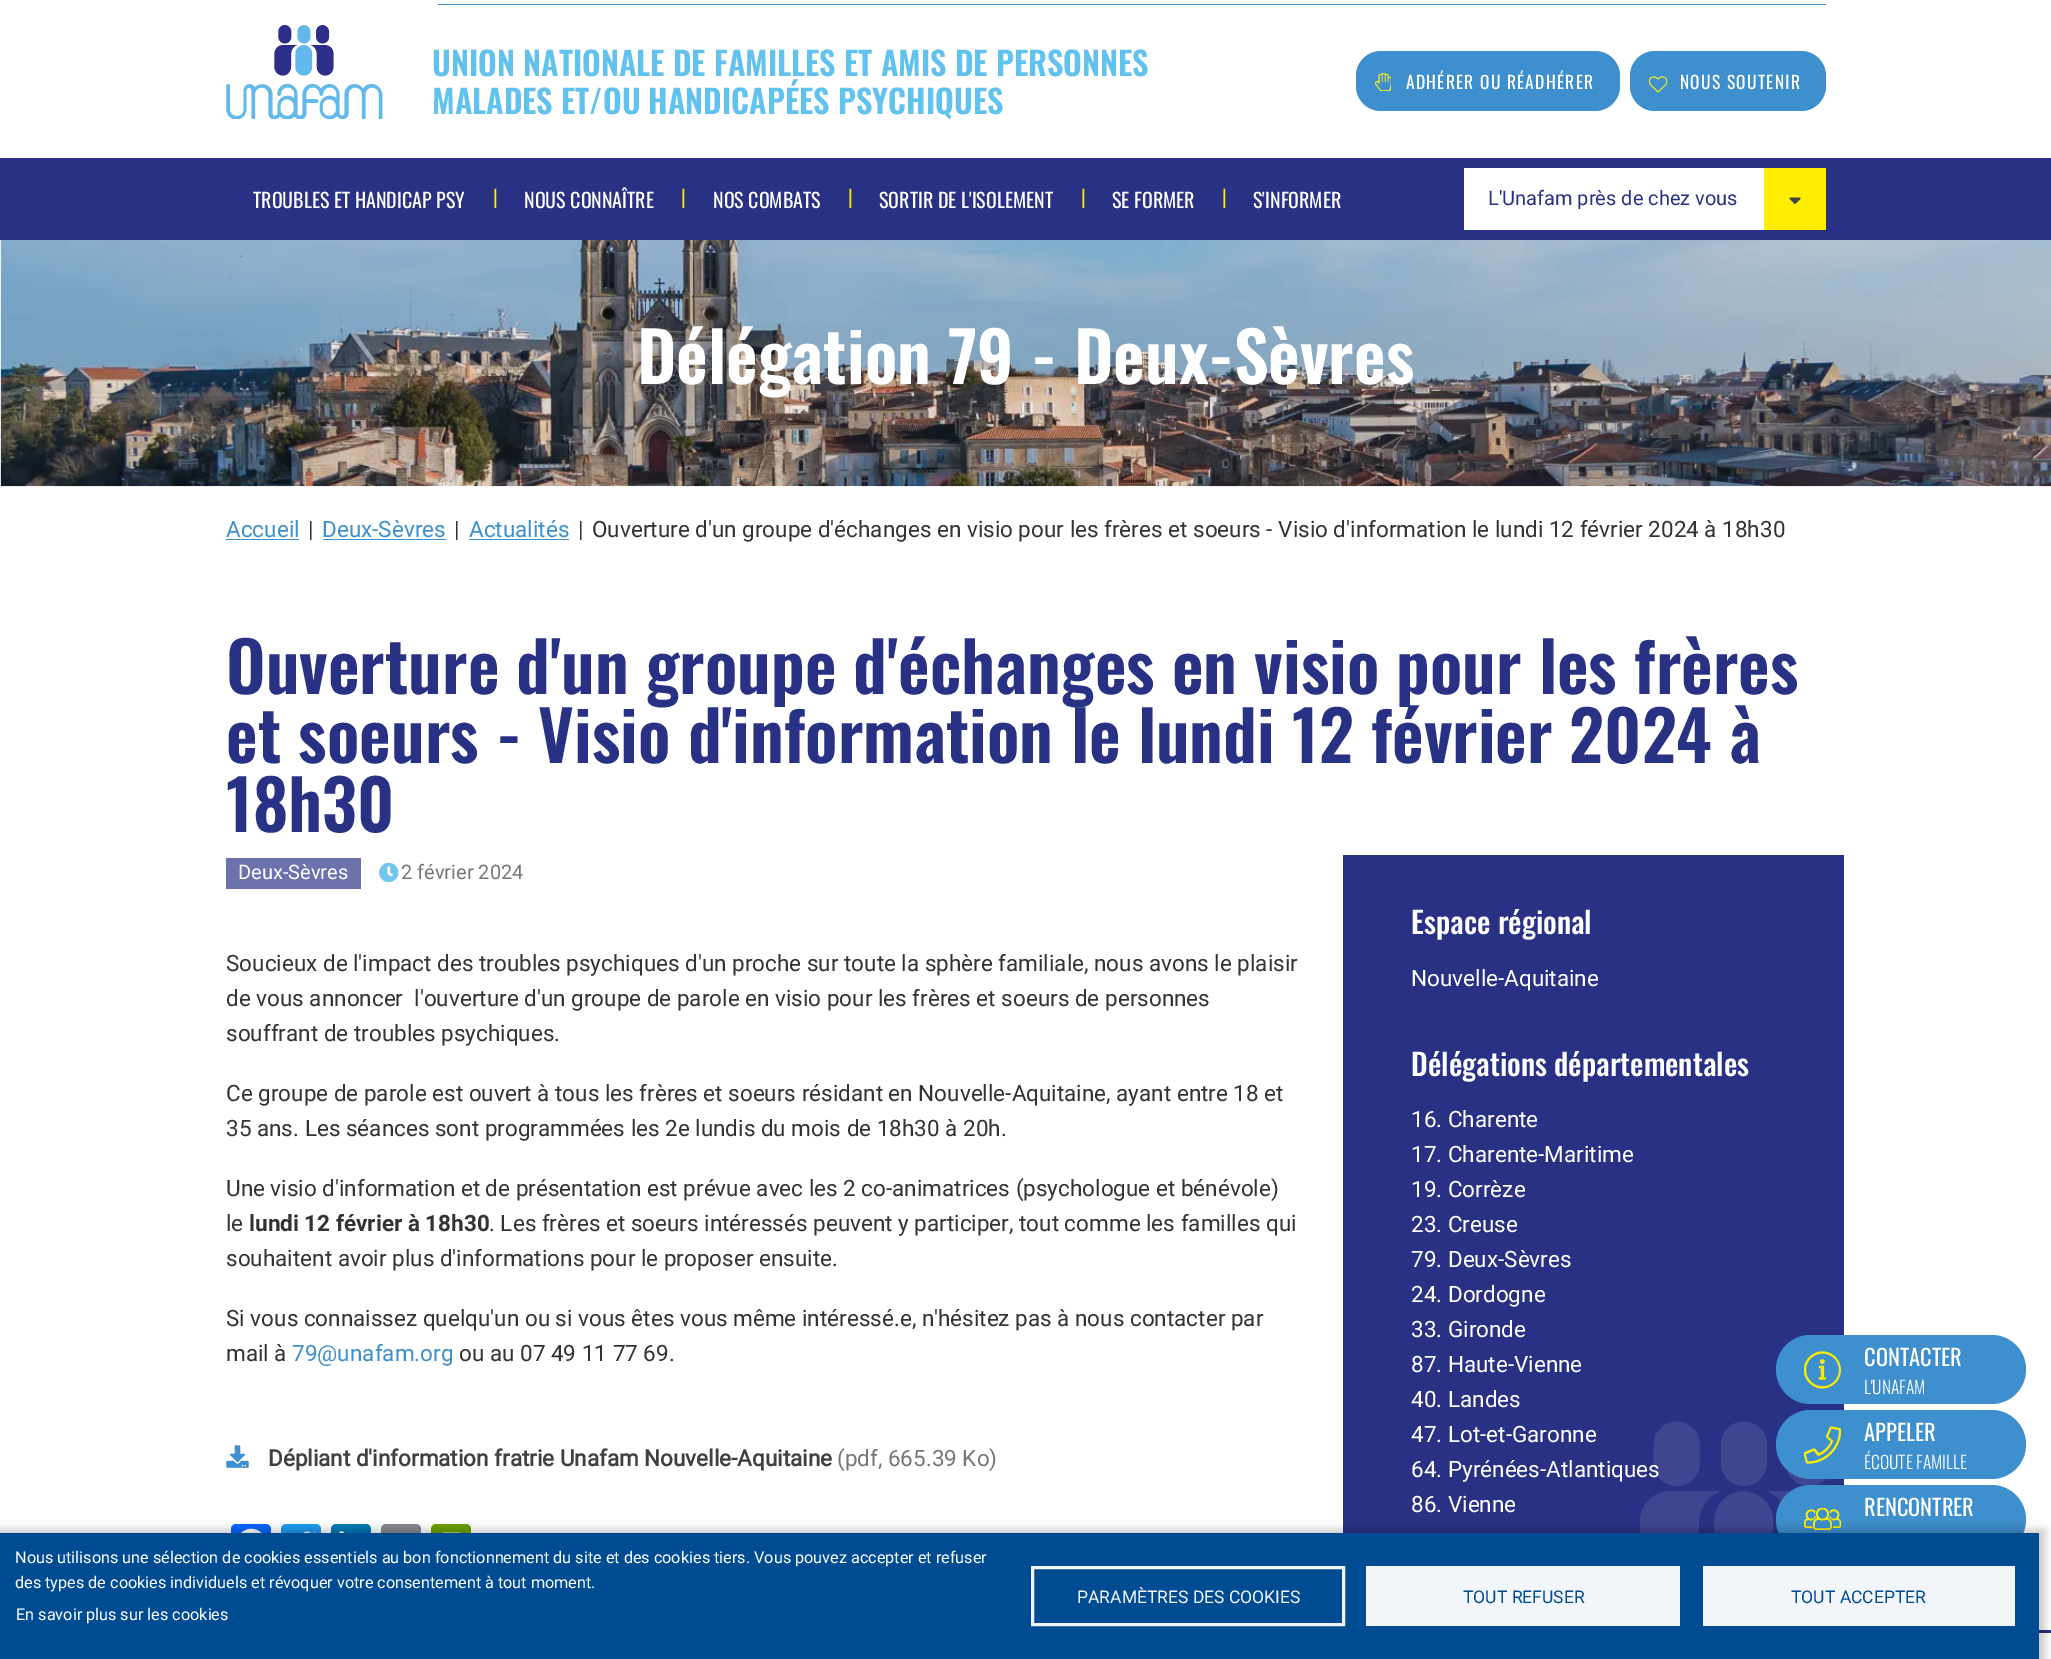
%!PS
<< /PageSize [2051 1659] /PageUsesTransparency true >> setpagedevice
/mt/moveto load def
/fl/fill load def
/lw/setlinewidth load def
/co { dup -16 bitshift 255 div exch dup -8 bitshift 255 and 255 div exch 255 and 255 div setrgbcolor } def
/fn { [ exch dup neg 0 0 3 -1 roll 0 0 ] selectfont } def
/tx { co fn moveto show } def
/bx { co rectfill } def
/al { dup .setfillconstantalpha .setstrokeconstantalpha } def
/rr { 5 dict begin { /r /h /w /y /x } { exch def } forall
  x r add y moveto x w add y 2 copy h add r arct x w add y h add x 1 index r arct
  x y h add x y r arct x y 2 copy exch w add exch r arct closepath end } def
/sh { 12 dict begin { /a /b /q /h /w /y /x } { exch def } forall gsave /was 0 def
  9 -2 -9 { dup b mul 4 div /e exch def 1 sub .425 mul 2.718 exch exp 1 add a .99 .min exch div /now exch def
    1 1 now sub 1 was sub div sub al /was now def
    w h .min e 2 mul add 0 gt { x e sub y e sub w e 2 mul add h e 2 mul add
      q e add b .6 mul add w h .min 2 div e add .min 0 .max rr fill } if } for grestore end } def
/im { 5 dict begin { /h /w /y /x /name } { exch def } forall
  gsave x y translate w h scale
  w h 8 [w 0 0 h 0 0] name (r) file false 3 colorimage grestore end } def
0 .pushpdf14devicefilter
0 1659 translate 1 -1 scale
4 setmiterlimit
0 0 2051 1659 16#FFFFFF bx
438 4 1388 1 16#3D8FCD bx
(media/1.raw) 226 25 157 94 im
16#3E8FCE co
1356 51 264 60 25 rr fl
(media/2.raw) 1375 73 16 18 im
1630 51 196 60 25 rr fl
(media/3.raw) 1649 76 19 17 im
0 158 2051 82 16#293184 bx
1464 168 300 62 16#FFFFFF bx
1764 168 62 62 16#FEED01 bx
(media/4.raw) 1789 197 12 7 im
(media/5.raw) 0 240 2051 247 im
226 539 73 1 16#3D8FCD bx
323 539 123 1 16#3D8FCD bx
469 539 100 1 16#3D8FCD bx
226 858 135 31 16#6C72AE bx
(media/6.raw) 379 862 20 21 im
(media/7.raw) 226 1445 23 23 im
16#0866FF co
231 1524 40 40 5 rr fl
(media/8.raw) 241 1528 21 5 im
16#1D9BF0 co
281 1524 40 40 5 rr fl
(media/9.raw) 288 1531 28 2 im
16#007BB5 co
331 1524 40 40 5 rr fl
(media/10.raw) 339 1531 6 2 im
16#888990 co
381 1524 40 40 5 rr fl
16#6D9F00 co
431 1524 40 40 5 rr fl
(media/11.raw) 442 1532 19 1 im
1343 855 501 678 16#293184 bx
(media/12.raw) 1640 1421 186 112 im
16#3D8FCD co
1776 1335 250 69 34.5 rr fl
(media/13.raw) 1804 1351 37 38 im
1776 1410 250 69 34.5 rr fl
(media/14.raw) 1804 1426 37 38 im
1776 1485 250 69 34.5 rr fl
(media/15.raw) 1804 1508 37 22 im
2039 1630 12 3 16#293184 bx
16#000000 co
-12 1529 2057 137 0 4 .2 sh
0 1533 2039 126 16#004C93 bx
16#F2F6FA co
3 lw
1032.5 1567.5 311 57 rectstroke
1366 1566 314 60 16#F2F6FA bx
1703 1566 312 60 16#F2F6FA bx
(UNION NATIONALE DE FAMILLES ET AMIS DE PERSONNES) 432 76 /Oswald-SemiBold 32.5 16#61C2EE tx
(MALADES ET/OU HANDICAPÉES PSYCHIQUES) 432 114 /Oswald-SemiBold 32.5 16#61C2EE tx
/Oswald-Regular 17.5 fn
16#FFFFFF co
1406 89 mt 1.25 0 (ADHÉRER OU RÉADHÉRER) ashow
1680 89 mt 1.25 0 (NOUS SOUTENIR) ashow
(TROUBLES ET HANDICAP PSY) 253 208 /Oswald-Regular 20 16#FFFFFF tx
(|) 493 205 /Oswald-Regular 20 16#FEED01 tx
(NOUS CONNAÎTRE) 524 208 /Oswald-Regular 20 16#FFFFFF tx
(|) 681 205 /Oswald-Regular 20 16#FEED01 tx
(NOS COMBATS) 713 208 /Oswald-Regular 20 16#FFFFFF tx
(|) 848 205 /Oswald-Regular 20 16#FEED01 tx
(SORTIR DE L'ISOLEMENT) 879 208 /Oswald-Regular 20 16#FFFFFF tx
(|) 1081 205 /Oswald-Regular 20 16#FEED01 tx
(SE FORMER) 1112 208 /Oswald-Regular 20 16#FFFFFF tx
(|) 1222 205 /Oswald-Regular 20 16#FEED01 tx
(S'INFORMER) 1253 208 /Oswald-Regular 20 16#FFFFFF tx
(L'Unafam près de chez vous) 1488 205 /Roboto-Regular 20 16#293184 tx
(Délégation 79 - Deux-Sèvres) 637 384 /Oswald-SemiBold 68.75 16#FFFFFF tx
(Accueil) 226 537 /Roboto-Regular 22.5 16#3D8FCD tx
(|) 308 537 /Roboto-Regular 22.5 16#333333 tx
(Deux-Sèvres) 322 537 /Roboto-Regular 22.5 16#3D8FCD tx
(|) 454 537 /Roboto-Regular 22.5 16#333333 tx
(Actualités) 469 537 /Roboto-Regular 22.5 16#3D8FCD tx
(|) 578 537 /Roboto-Regular 22.5 16#333333 tx
(Ouverture d'un groupe d'échanges en visio pour les frères et soeurs - Visio d'information le lundi 12 février 2024 à 18h30) 592 537 /Roboto-Regular 22.5 16#333333 tx
(Ouverture d'un groupe d'échanges en visio pour les frères) 226 694 /Oswald-SemiBold 68.75 16#293184 tx
(et soeurs - Visio d'information le lundi 12 février 2024 à) 226 763 /Oswald-SemiBold 68.75 16#293184 tx
(18h30) 226 832 /Oswald-SemiBold 68.75 16#293184 tx
(Deux-Sèvres) 238 879 /Roboto-Regular 20 16#FFFFFF tx
(2 février 2024) 401 879 /Roboto-Regular 20 16#777777 tx
(Soucieux de l'impact des troubles psychiques d'un proche sur toute la sphère familiale, nous avons le plaisir) 226 971 /Roboto-Regular 22.5 16#333333 tx
(de vous annoncer  l'ouverture d'un groupe de parole en visio pour les frères et soeurs de personnes) 226 1006 /Roboto-Regular 22.5 16#333333 tx
(souffrant de troubles psychiques.) 226 1041 /Roboto-Regular 22.5 16#333333 tx
(Ce groupe de parole est ouvert à tous les frères et soeurs résidant en Nouvelle-Aquitaine, ayant entre 18 et) 226 1101 /Roboto-Regular 22.5 16#333333 tx
(35 ans. Les séances sont programmées les 2e lundis du mois de 18h30 à 20h.) 226 1136 /Roboto-Regular 22.5 16#333333 tx
(Une visio d'information et de présentation est prévue avec les 2 co-animatrices \(psychologue et bénévole\)) 226 1196 /Roboto-Regular 22.5 16#333333 tx
(le) 226 1231 /Roboto-Regular 22.5 16#333333 tx
(lundi 12 février à 18h30) 249 1231 /Roboto-Bold 22.5 16#333333 tx
(. Les frères et soeurs intéressés peuvent y participer, tout comme les familles qui) 489 1231 /Roboto-Regular 22.5 16#333333 tx
(souhaitent avoir plus d'informations pour le proposer ensuite.) 226 1266 /Roboto-Regular 22.5 16#333333 tx
(Si vous connaissez quelqu'un ou si vous êtes vous même intéressé.e, n'hésitez pas à nous contacter par) 226 1326 /Roboto-Regular 22.5 16#333333 tx
(mail à) 226 1361 /Roboto-Regular 22.5 16#333333 tx
(79@unafam.org) 292 1361 /Roboto-Regular 22.5 16#3D8FCD tx
(ou au 07 49 11 77 69.) 459 1361 /Roboto-Regular 22.5 16#333333 tx
(Dépliant d'information fratrie Unafam Nouvelle-Aquitaine) 268 1466 /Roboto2-Bold 22.5 16#404040 tx
(\(pdf, 665.39 Ko\)) 837 1466 /Roboto-Regular 22.5 16#777777 tx
(Espace régional) 1411 934 /Oswald-Medium 30 16#FFFFFF tx
(Nouvelle-Aquitaine) 1411 986 /Roboto-Regular 22.5 16#FFFFFF tx
(Délégations départementales) 1411 1076 /Oswald-Medium 30 16#FFFFFF tx
(16. Charente) 1411 1127 /Roboto-Regular 22.5 16#FFFFFF tx
(17. Charente-Maritime) 1411 1162 /Roboto-Regular 22.5 16#FFFFFF tx
(19. Corrèze) 1411 1197 /Roboto-Regular 22.5 16#FFFFFF tx
(23. Creuse) 1411 1232 /Roboto-Regular 22.5 16#FFFFFF tx
(79. Deux-Sèvres) 1411 1267 /Roboto-Regular 22.5 16#FFFFFF tx
(24. Dordogne) 1411 1302 /Roboto-Regular 22.5 16#FFFFFF tx
(33. Gironde) 1411 1337 /Roboto-Regular 22.5 16#FFFFFF tx
(87. Haute-Vienne) 1411 1372 /Roboto-Regular 22.5 16#FFFFFF tx
(40. Landes) 1411 1407 /Roboto-Regular 22.5 16#FFFFFF tx
(47. Lot-et-Garonne) 1411 1442 /Roboto-Regular 22.5 16#FFFFFF tx
(64. Pyrénées-Atlantiques) 1411 1477 /Roboto-Regular 22.5 16#FFFFFF tx
(86. Vienne) 1411 1512 /Roboto-Regular 22.5 16#FFFFFF tx
(CONTACTER) 1864 1366 /Oswald-Regular 22.5 16#FFFFFF tx
(L'UNAFAM) 1864 1394 /Oswald-Light 17.5 16#FFFFFF tx
(APPELER) 1864 1441 /Oswald-Regular 22.5 16#FFFFFF tx
(ÉCOUTE FAMILLE) 1864 1469 /Oswald-Light 17.5 16#FFFFFF tx
(RENCONTRER) 1864 1516 /Oswald-Regular 22.5 16#FFFFFF tx
(Nous utilisons une sélection de cookies essentiels au bon fonctionnement du site et des cookies tiers. Vous pouvez accepter et refuser) 15 1563 /Roboto-Regular 16.25 16#FFFFFF tx
(des types de cookies individuels et révoquer votre consentement à tout moment.) 15 1588 /Roboto-Regular 16.25 16#FFFFFF tx
(En savoir plus sur les cookies) 16 1620 /Roboto-Regular 16.25 16#FFFFFF tx
(PARAMÈTRES DES COOKIES) 1077 1603 /Roboto-Regular 17.5 16#F2F6FA tx
(TOUT REFUSER) 1463 1603 /Roboto-Regular 17.5 16#004C93 tx
(TOUT ACCEPTER) 1791 1603 /Roboto-Regular 17.5 16#004C93 tx
.poppdf14devicefilter showpage
